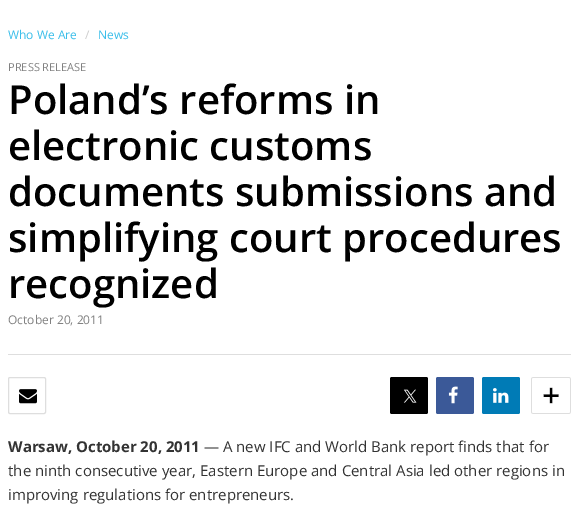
%!PS
<< /PageSize [579 523] >> setpagedevice
/fl/fill load def
/st/stroke load def
/co { dup -16 bitshift 255 div exch dup -8 bitshift 255 and 255 div exch 255 and 255 div setrgbcolor } def
/fn { [ exch dup neg 0 0 3 -1 roll 0 0 ] selectfont } def
/tx { co fn moveto show } def
/bx { co rectfill } def
/rr { 5 dict begin { /r /h /w /y /x } { exch def } forall
  x r add y moveto x w add y 2 copy h add r arct x w add y h add x 1 index r arct
  x y h add x y r arct x y 2 copy exch w add exch r arct closepath end } def
/im { 5 dict begin { /h /w /y /x /name } { exch def } forall
  gsave x y translate w h scale
  w h 8 [w 0 0 h 0 0] name (r) file false 3 colorimage grestore end } def
0 523 translate 1 -1 scale
4 setmiterlimit
0 0 579 523 16#FFFFFF bx
8 354 563 1 16#DEDEDE bx
8.5 377.5 37 36 1.5 rr st
(media/1.raw) 19 389 18 15 im
16#000000 co
390 377 38 37 2 rr fl
(media/2.raw) 403 389 14 14 im
16#3B5998 co
436 377 38 37 2 rr fl
(media/3.raw) 448 386 10 18 im
16#007BB6 co
482 377 38 37 2 rr fl
(media/4.raw) 493 388 16 15 im
(media/5.raw) 531 377 40 37 im
(Who We Are) 8 39 /OpenSans-Regular 12 16#39BEEA tx
(/) 85 39 /OpenSans-Regular 12 16#CCCCCC tx
(News) 98 39 /OpenSans-Regular 12 16#39BEEA tx
(PRESS RELEASE) 8 71 /OpenSans-Regular 11 16#818181 tx
(Poland’s reforms in) 8 114 /OpenSans-SemiBold 40 16#000000 tx
(electronic customs) 8 160 /OpenSans-SemiBold 40 16#000000 tx
(documents submissions and) 8 206 /OpenSans-SemiBold 40 16#000000 tx
(simplifying court procedures) 8 252 /OpenSans-SemiBold 40 16#000000 tx
(recognized) 8 298 /OpenSans-SemiBold 40 16#000000 tx
(October 20, 2011) 8 324 /OpenSans-Regular 12 16#818181 tx
(Warsaw, October 20, 2011) 8 452 /OpenSans-Bold 15 16#333333 tx
(— A new IFC and World Bank report finds that for) 204 452 /OpenSans-Regular 15 16#333333 tx
(the ninth consecutive year, Eastern Europe and Central Asia led other regions in) 8 476 /OpenSans-Regular 15 16#333333 tx
(improving regulations for entrepreneurs.) 8 500 /OpenSans-Regular 15 16#333333 tx
showpage
